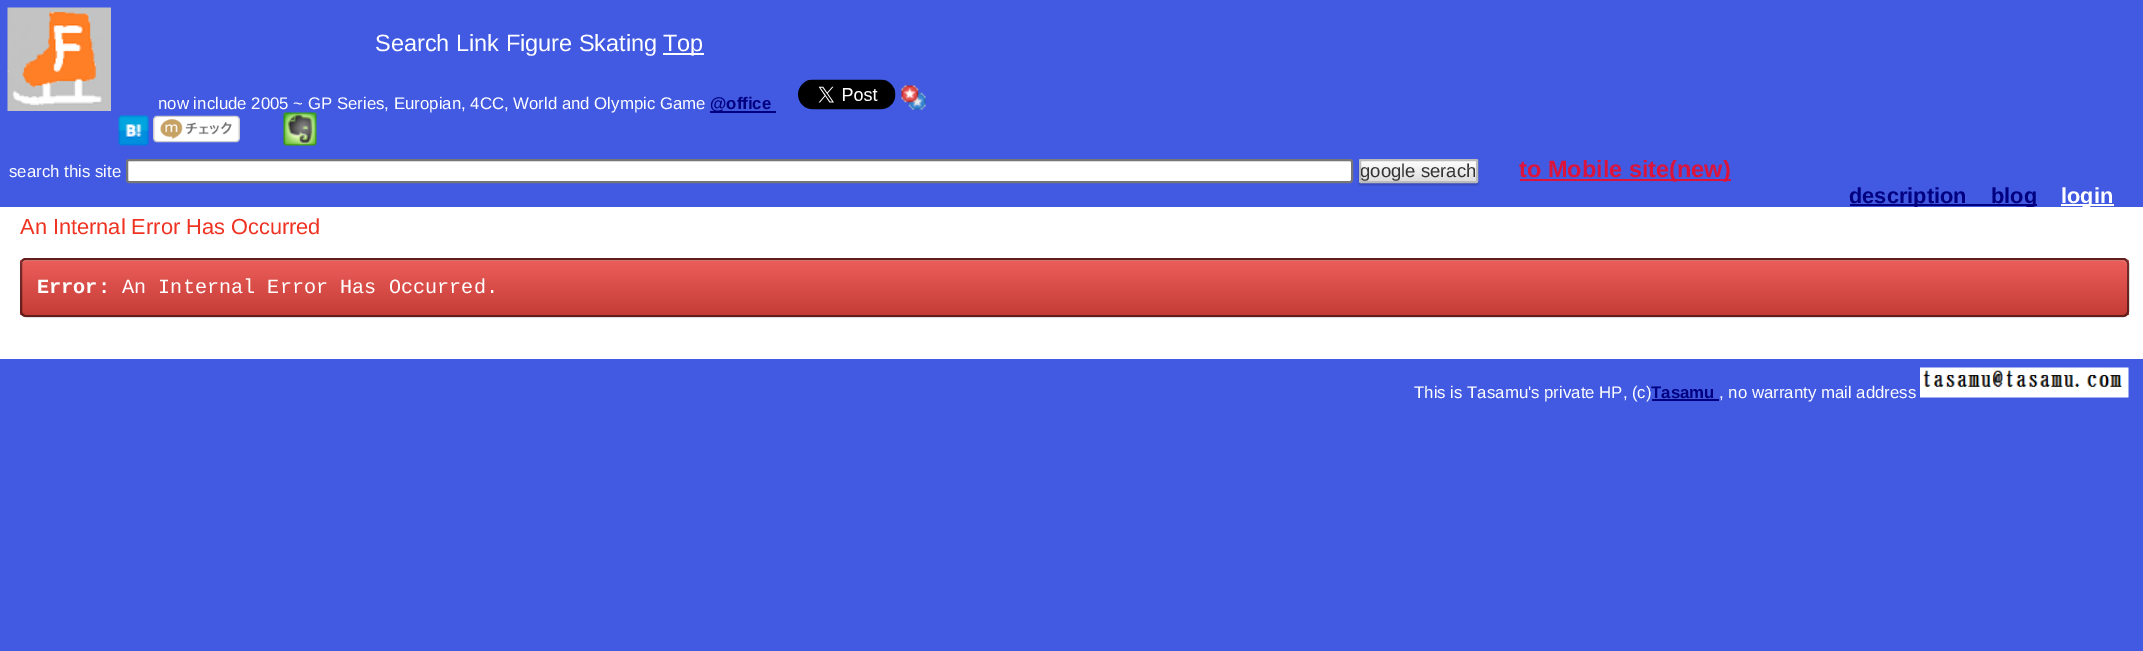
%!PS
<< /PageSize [2143 651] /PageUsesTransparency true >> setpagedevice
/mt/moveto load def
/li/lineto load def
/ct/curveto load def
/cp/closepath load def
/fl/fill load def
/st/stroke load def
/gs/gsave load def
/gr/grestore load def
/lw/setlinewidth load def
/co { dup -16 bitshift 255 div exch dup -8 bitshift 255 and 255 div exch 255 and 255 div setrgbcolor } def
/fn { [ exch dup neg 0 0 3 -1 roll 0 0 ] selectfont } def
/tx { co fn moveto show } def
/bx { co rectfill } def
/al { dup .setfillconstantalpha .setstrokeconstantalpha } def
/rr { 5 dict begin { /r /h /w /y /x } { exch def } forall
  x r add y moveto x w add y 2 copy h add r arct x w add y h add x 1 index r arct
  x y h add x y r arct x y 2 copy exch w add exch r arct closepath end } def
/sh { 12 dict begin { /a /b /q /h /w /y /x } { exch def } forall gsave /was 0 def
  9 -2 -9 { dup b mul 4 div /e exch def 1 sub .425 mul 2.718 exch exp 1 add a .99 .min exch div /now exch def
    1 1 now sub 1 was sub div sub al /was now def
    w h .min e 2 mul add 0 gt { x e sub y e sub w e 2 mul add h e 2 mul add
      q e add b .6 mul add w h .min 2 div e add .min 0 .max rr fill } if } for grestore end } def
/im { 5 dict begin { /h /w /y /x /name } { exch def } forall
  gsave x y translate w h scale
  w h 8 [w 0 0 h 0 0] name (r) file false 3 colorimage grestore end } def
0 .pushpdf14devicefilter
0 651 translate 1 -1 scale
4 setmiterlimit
0 0 2143 651 16#415AE1 bx
(media/1.raw) 7 7 104 104 im
663 53 41 2 16#FFFFFF bx
710 111 66 2 16#000080 bx
(media/2.raw) 798 79 98 31 im
(media/3.raw) 901 85 25 25 im
(media/4.raw) 118 115 31 31 im
(media/5.raw) 153 115 87 28 im
16#FFFFFF co
127 160 1225 22 2 rr gs fl gr
16#767676 co
2 lw
st
16#000000 co
1359 161 119 24 1.5 1 .2 sh
gs 1359 161 mt 1478 161 li 1478 182 li 1359 182 li cp clip newpath
<< /ShadingType 2 /ColorSpace /DeviceRGB /Coords [1418 161 1418 182] /Extend [true true] /Function << /FunctionType 2 /Domain [0 1] /C0 [.996 .996 .996] /C1 [.863 .863 .863] /N 1 >> >> shfill gr
16#BBBBBB co
1360 160 117 22 .5 rr st
1520 179 211 2 16#DC143C bx
1850 204 187 2 16#000080 bx
2061 204 53 2 16#FFFFFF bx
1652 399 67 2 16#000080 bx
(media/7.raw) 1920 367 209 31 im
(Search Link Figure Skating) 375 51 /LiberationSans-Regular 23.5 16#FFFFFF tx
(Top) 663 51 /LiberationSans-Regular 23.5 16#FFFFFF tx
(now include 2005 ~ GP Series, Europian, 4CC, World and Olympic Game) 158 109 /LiberationSans-Regular 16.8 16#FFFFFF tx
(@office) 710 109 /LiberationSans-Bold 16.8 16#000080 tx
(media/6.raw) 283 112 34 34 im
(search this site) 9 177 /LiberationSans-Regular 16.8 16#FFFFFF tx
gs
1361 161 115 21 rectclip
(google serach) 1360 177 /LiberationSans-Regular 18.5 16#333333 tx
gr
(to Mobile site\(new\)) 1519 177 /LiberationSans-Bold 23.5 16#DC143C tx
(description) 1849 203 /LiberationSans-Bold 21.8 16#000080 tx
(blog) 1991 203 /LiberationSans-Bold 21.8 16#000080 tx
(login) 2061 203 /LiberationSans-Bold 21.8 16#FFFFFF tx
0 207 2143 152 16#FFFFFF bx
(An Internal Error Has Occurred) 20 234 /LiberationSans-Regular 21.8 16#EE3322 tx
16#C43C35 co
20 258 2109 59 6 rr fl
gs
20 258 2109 59 6 rr clip newpath
gs 20 260 mt 2129 260 li 2129 315 li 20 315 li cp clip newpath
<< /ShadingType 2 /ColorSpace /DeviceRGB /Coords [1074 259 1074 315] /Extend [true true] /Function << /FunctionType 2 /Domain [0 1] /C0 [.933 .373 .357] /C1 [.769 .235 .208] /N 1 >> >> shfill gr
gr
16#F18683 co
26 261 mt 2122 261 li 2125 261 2127 263 2127 266 ct 2127 263 2125 260 2122 260 ct 26 260 li 24 260 22 262 21 264 ct 21 266 li 21 263 23 261 26 261 ct cp fl
0.5 al
16#000000 co
21 259 2107 57 5 rr st
1 al
(Error:) 37 293 /LiberationMono-Bold 20.2 16#FFFFFF tx
(An Internal Error Has Occurred.) 122 293 /LiberationMono-Regular 20.2 16#FFFFFF tx
(This is Tasamu's private HP, \(c\)) 1414 398 /LiberationSans-Regular 16.8 16#FFFFFF tx
(Tasamu) 1651 398 /LiberationSans-Bold 16.8 16#000080 tx
(, no warranty mail address) 1719 398 /LiberationSans-Regular 16.8 16#FFFFFF tx
.poppdf14devicefilter showpage
